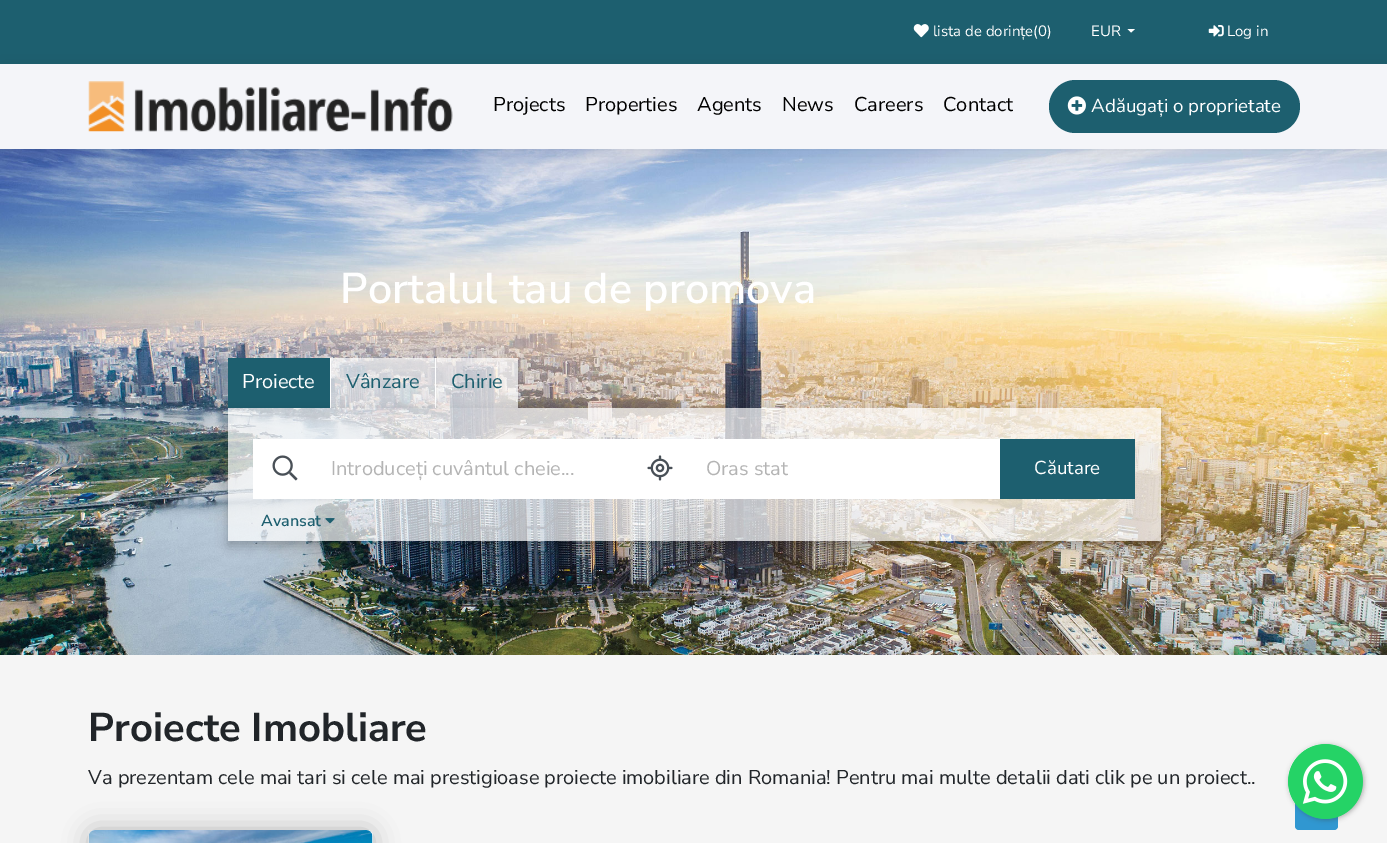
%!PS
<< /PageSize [1387 843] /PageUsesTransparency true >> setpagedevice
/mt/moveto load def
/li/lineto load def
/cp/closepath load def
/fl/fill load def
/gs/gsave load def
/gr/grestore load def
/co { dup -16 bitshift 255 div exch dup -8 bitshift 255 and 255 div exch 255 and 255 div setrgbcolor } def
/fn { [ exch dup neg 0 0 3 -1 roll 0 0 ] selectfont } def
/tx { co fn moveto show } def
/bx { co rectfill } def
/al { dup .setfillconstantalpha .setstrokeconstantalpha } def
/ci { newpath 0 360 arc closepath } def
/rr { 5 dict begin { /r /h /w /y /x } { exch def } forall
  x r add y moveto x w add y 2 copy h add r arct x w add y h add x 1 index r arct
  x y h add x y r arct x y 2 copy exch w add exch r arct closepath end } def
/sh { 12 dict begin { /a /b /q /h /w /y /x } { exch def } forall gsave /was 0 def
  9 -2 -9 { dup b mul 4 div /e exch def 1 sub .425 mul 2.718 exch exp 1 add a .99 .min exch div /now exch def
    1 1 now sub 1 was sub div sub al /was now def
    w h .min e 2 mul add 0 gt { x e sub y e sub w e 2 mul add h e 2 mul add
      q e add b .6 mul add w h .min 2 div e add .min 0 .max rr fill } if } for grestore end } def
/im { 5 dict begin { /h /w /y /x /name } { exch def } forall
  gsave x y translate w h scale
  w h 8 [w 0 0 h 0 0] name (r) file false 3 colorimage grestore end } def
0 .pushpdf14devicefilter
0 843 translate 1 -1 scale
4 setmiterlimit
0 0 1387 843 16#1D5F6F bx
(media/1.raw) 913 24 16 14 im
16#FFFFFF co
1127.5 29 mt 1135 29 li 1131 32.5 li cp fl
(media/2.raw) 1208 25 16 12 im
(media/5.raw) 0 149 1387 506 im
16#000000 co
0 69 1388 85 0 12.5 .1 sh
0 64 1387 85 16#F4F5F9 bx
(media/3.raw) 88 81 365 51 im
16#1D5F6F co
1049 80 251 53 26.5 rr fl
(media/4.raw) 1067 96 19 19 im
228 358 102 50 16#1D5F6F bx
330 358 1 50 16#FFFFFF bx
0.7 al
331 358 104 50 16#FFFFFF bx
1 al
435 358 1 50 16#FFFFFF bx
0.7 al
436 358 82 50 16#FFFFFF bx
gs
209 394 mt 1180 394 li 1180 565 li 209 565 li cp 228 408 mt 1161 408 li 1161 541 li 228 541 li cp eoclip newpath
1 al
16#000000 co
228 413 933 133 0 6 .25 sh
gr
228 408 933 133 16#FFFFFF bx
1 al
253 439 63 60 16#FFFFFF bx
(media/6.raw) 272 455 26 26 im
316 439 684 60 16#FFFFFF bx
(media/7.raw) 647 455 26 26 im
1000 439 135 60 16#1D5F6F bx
(media/8.raw) 325 518 10 6 im
0 655 1387 188 16#F5F5F5 bx
16#000000 co
89 830 284 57 6 12.5 .25 sh
16#FFFFFF co
89 830 284 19 6 rr fl
(media/9.raw) 88 830 285 13 im
16#3097D1 co
1295 788 43 42 4 rr fl
16#3C3C3C co
1289 745 75 75 37.5 2.5 .4 sh
16#25D366 co
1325.5 781.5 37.5 ci fl
(media/10.raw) 1288 744 75 75 im
(lista de dorințe\(0\)) 933 36 /NunitoSans-Regular 15 16#FFFFFF tx
(EUR) 1091 36 /NunitoSans-Regular 15 16#FFFFFF tx
(Log in) 1227 36 /NunitoSans-Regular 15 16#FFFFFF tx
(Projects) 493 111 /NunitoSans-Regular 20 16#000000 tx
(Properties) 585 111 /NunitoSans-Regular 20 16#000000 tx
(Agents) 697 111 /NunitoSans-Regular 20 16#000000 tx
(News) 782 111 /NunitoSans-Regular 20 16#000000 tx
(Careers) 854 111 /NunitoSans-Regular 20 16#000000 tx
(Contact) 943 111 /NunitoSans-Regular 20 16#000000 tx
(Adăugați o proprietate) 1091 112 /NunitoSans-Regular 18.75 16#FFFFFF tx
(Portalul tau de promova) 340 303 /NunitoSans-SemiBold 43 16#FFFFFF tx
(Proiecte) 242 388 /NunitoSans-Regular 20 16#FFFFFF tx
(Vânzare) 346 388 /NunitoSans-Regular 20 16#1D5F6F tx
(Chirie) 451 388 /NunitoSans-Regular 20 16#1D5F6F tx
(Introduceți cuvântul cheie...) 331 475 /NunitoSans-Regular 20 16#B4B4B4 tx
(Oras stat) 706 475 /NunitoSans-Regular 20 16#B4B4B4 tx
(Căutare) 1034 474 /NunitoSans-Regular 18.75 16#FFFFFF tx
(Avansat) 261 526 /NunitoSans-SemiBold 16 16#1D5F6F tx
(Proiecte Imobliare) 88 741 /NunitoSans-Bold 40 16#212529 tx
(Va prezentam cele mai tari si cele mai prestigioase proiecte imobiliare din Romania! Pentru mai multe detalii dati clik pe un proiect..) 88 784 /NunitoSans-Regular 20 16#212529 tx
.poppdf14devicefilter showpage
